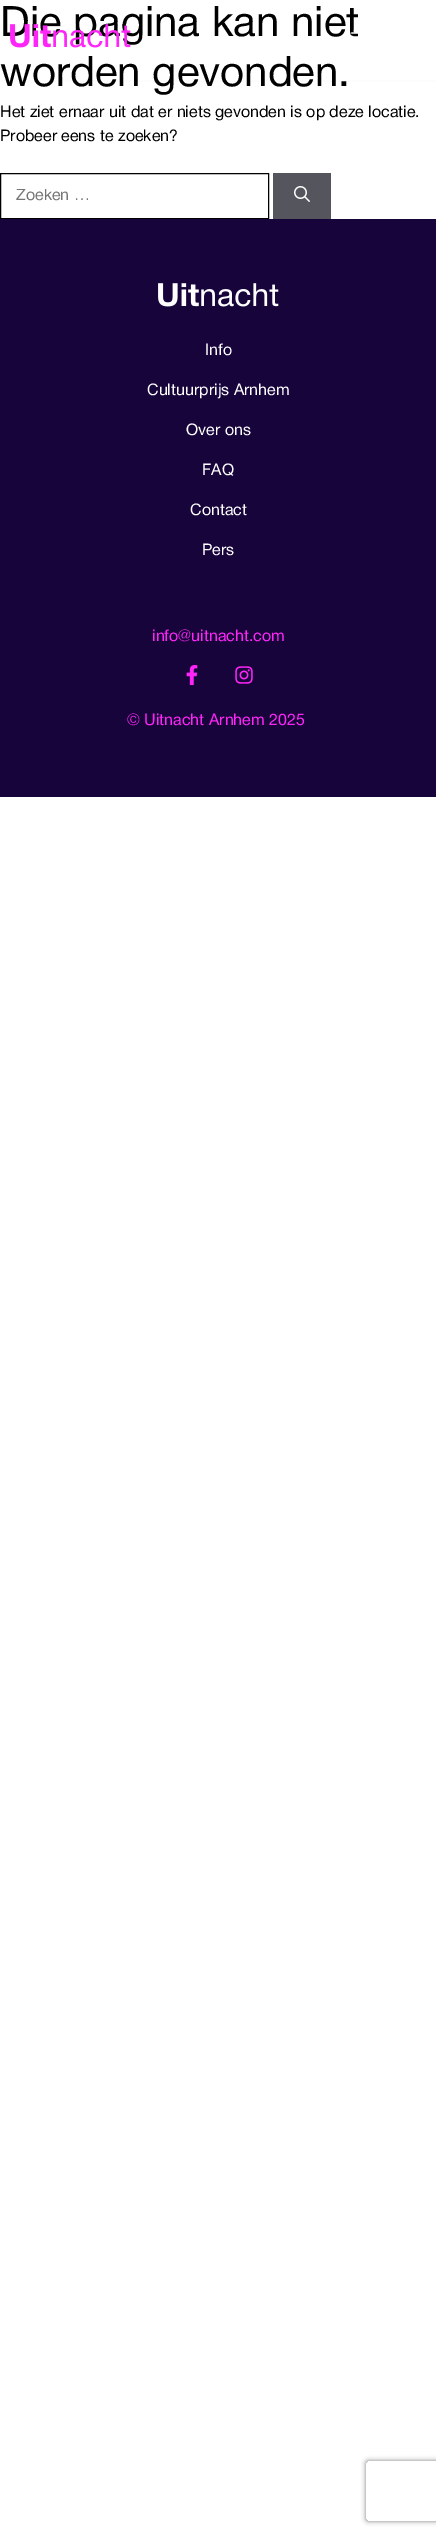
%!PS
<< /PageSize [436 2535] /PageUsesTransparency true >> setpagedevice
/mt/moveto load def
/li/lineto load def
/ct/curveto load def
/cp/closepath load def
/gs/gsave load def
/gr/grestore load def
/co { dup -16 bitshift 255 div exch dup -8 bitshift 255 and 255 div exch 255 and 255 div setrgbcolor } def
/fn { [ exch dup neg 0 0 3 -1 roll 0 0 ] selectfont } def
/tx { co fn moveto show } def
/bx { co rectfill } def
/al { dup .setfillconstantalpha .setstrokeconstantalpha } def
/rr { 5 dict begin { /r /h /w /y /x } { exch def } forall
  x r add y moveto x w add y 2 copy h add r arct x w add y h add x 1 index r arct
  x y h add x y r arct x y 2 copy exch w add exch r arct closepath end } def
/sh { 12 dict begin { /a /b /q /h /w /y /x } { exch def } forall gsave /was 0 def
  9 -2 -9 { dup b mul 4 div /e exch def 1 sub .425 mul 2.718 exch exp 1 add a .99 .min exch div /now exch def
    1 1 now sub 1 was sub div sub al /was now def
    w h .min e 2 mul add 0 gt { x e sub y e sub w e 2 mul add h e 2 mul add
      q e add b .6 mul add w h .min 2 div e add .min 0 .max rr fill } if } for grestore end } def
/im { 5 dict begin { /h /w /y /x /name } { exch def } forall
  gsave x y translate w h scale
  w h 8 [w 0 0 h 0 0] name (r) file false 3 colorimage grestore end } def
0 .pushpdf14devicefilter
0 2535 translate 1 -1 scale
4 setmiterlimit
0 0 436 2535 16#FFFFFF bx
16#000000 co
.5 173.5 268 45 rectstroke
273 173 58 46 16#55555E bx
(media/1.raw) 294 186 16 16 im
0.1 al
0 80 436 2 16#E1E1E1 bx
1 al
0 219 436 578 16#16043B bx
(media/4.raw) 158 283 121 24 im
(media/5.raw) 186 665 12 20 im
(media/6.raw) 235 666 18 18 im
gs
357 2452 mt 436 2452 li 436 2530 li 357 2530 li cp 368 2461 mt 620 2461 li 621 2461 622 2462 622 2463 ct 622 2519 li 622 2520 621 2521 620 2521 ct 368 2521 li 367 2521 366 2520 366 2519 ct 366 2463 li 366 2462 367 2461 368 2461 ct cp eoclip newpath
16#808080 co
366 2461 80 60 2 2.5 1 sh
gr
(Die pagina kan niet) 0 36 /HelveticaNeue-Regular 42 16#000000 tx
(worden gevonden.) 0 86 /HelveticaNeue-Regular 42 16#000000 tx
(Het ziet ernaar uit dat er niets gevonden is op deze locatie.) 0 117 /HelveticaNeue-Regular 16 16#000000 tx
(Probeer eens te zoeken?) 0 141 /HelveticaNeue-Regular 16 16#000000 tx
gs
16 189 222 15 rectclip
(Zoeken …) 16 200 /HelveticaNeue-Regular 16 16#757575 tx
gr
(media/2.raw) 10 24 121 24 im
(media/3.raw) 351 32 8 2 im
(Info) 205 355 /HelveticaNeue-Regular 16 16#FFFFFF tx
(Cultuurprijs Arnhem) 147 395 /HelveticaNeue-Regular 16 16#FFFFFF tx
(Over ons) 186 435 /HelveticaNeue-Regular 16 16#FFFFFF tx
(FAQ) 202 475 /HelveticaNeue-Regular 16 16#FFFFFF tx
(Contact) 190 515 /HelveticaNeue-Regular 16 16#FFFFFF tx
(Pers) 202 555 /HelveticaNeue-Regular 16 16#FFFFFF tx
(info@uitnacht.com) 152 641 /HelveticaNeue-Regular 16 16#FF25F8 tx
(© Uitnacht Arnhem 2025) 127 725 /HelveticaNeue-Regular 16 16#FF25F8 tx
.poppdf14devicefilter showpage
